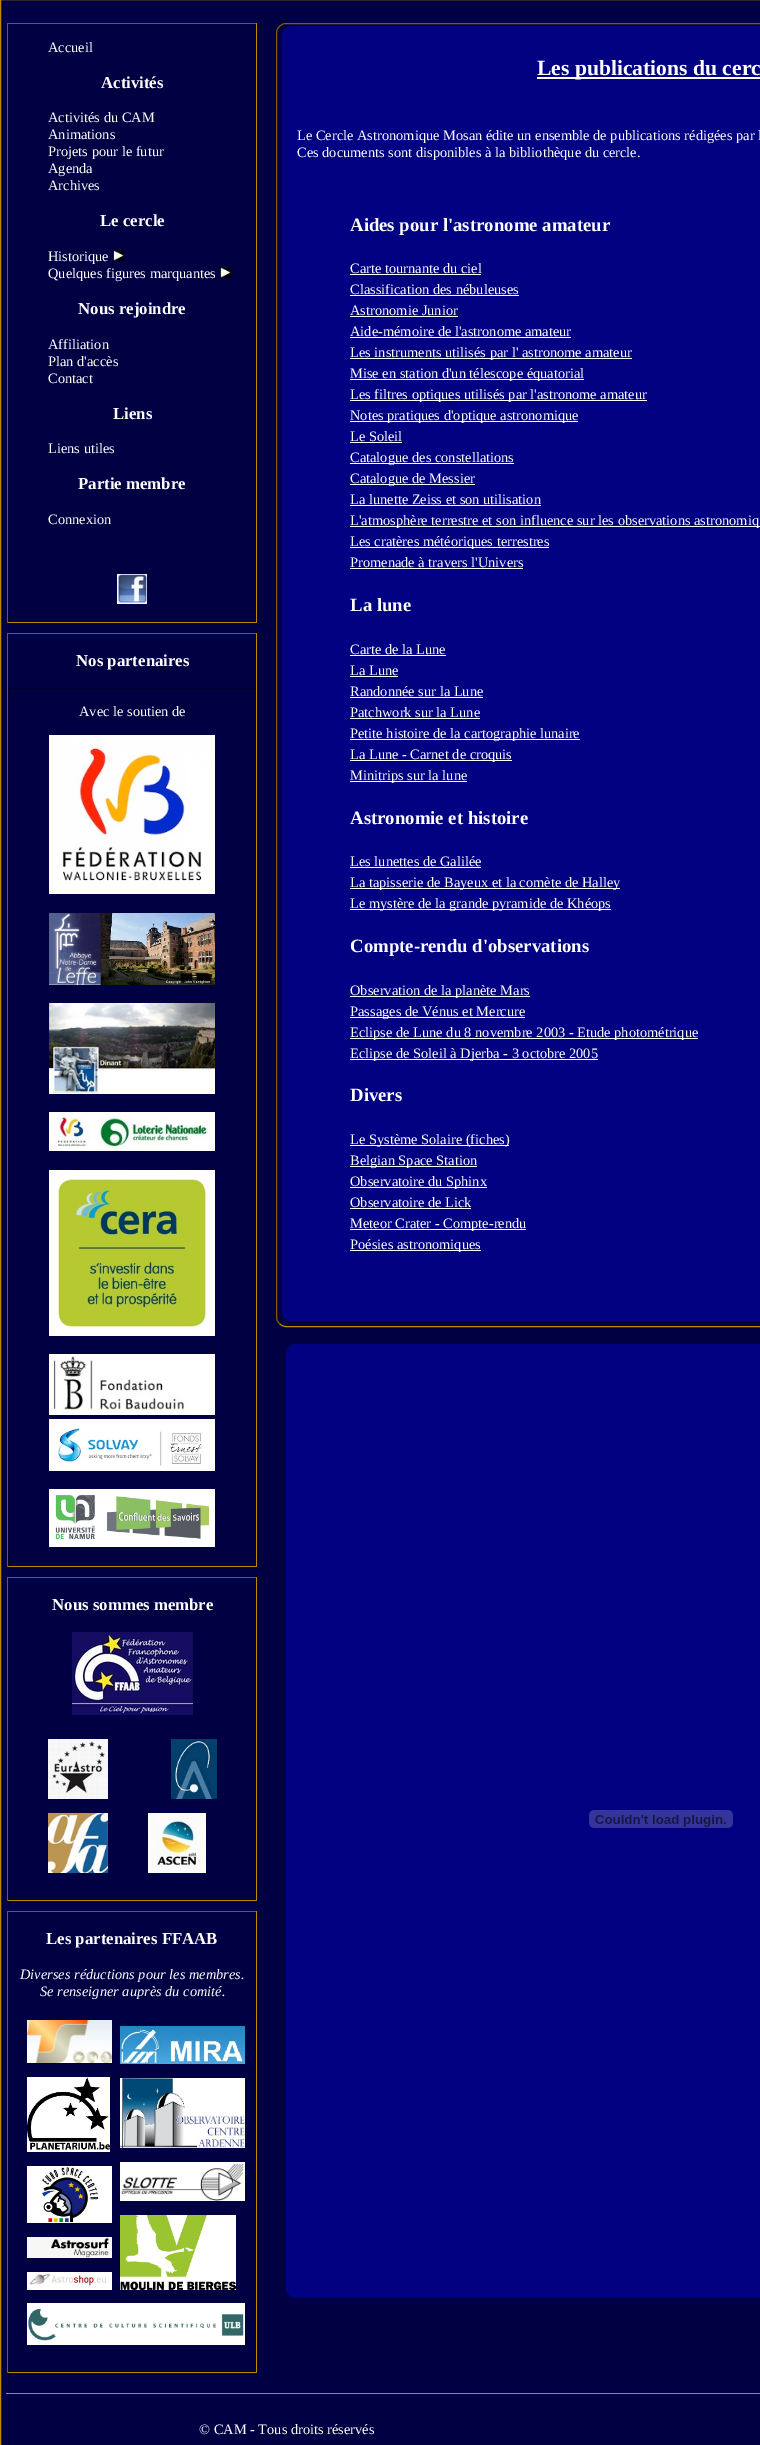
%!PS
<< /PageSize [760 2445] >> setpagedevice
/mt/moveto load def
/li/lineto load def
/ct/curveto load def
/fl/fill load def
/st/stroke load def
/co { dup -16 bitshift 255 div exch dup -8 bitshift 255 and 255 div exch 255 and 255 div setrgbcolor } def
/fn { [ exch dup neg 0 0 3 -1 roll 0 0 ] selectfont } def
/tx { co fn moveto show } def
/bx { co rectfill } def
/rr { 5 dict begin { /r /h /w /y /x } { exch def } forall
  x r add y moveto x w add y 2 copy h add r arct x w add y h add x 1 index r arct
  x y h add x y r arct x y 2 copy exch w add exch r arct closepath end } def
/im { 5 dict begin { /h /w /y /x /name } { exch def } forall
  gsave x y translate w h scale
  w h 8 [w 0 0 h 0 0] name (r) file false 3 colorimage grestore end } def
0 2445 translate 1 -1 scale
4 setmiterlimit
0 0 760 2445 16#000042 bx
16#BA8B00 co
.5 -.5 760 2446 rectstroke
7 23 250 1 16#7C5D00 bx
256 23 1 600 16#BA8B00 bx
7 622 250 1 16#BA8B00 bx
7 23 1 600 16#7C5D00 bx
(media/1.raw) 113 250 11 11 im
(media/2.raw) 220 267 11 11 im
(media/3.raw) 117 574 30 30 im
7 633 250 1 16#7C5D00 bx
256 633 1 934 16#BA8B00 bx
7 1566 250 1 16#BA8B00 bx
7 633 1 934 16#7C5D00 bx
8 688 248 1 16#00002C bx
255 688 1 1 16#000042 bx
8 688 1 878 16#00002C bx
(media/4.raw) 49 735 166 159 im
(media/5.raw) 49 913 166 72 im
(media/6.raw) 49 1003 166 91 im
(media/7.raw) 49 1112 166 39 im
(media/8.raw) 49 1170 166 166 im
(media/9.raw) 49 1354 166 61 im
(media/10.raw) 49 1419 166 52 im
(media/11.raw) 49 1489 166 58 im
7 1577 250 1 16#7C5D00 bx
256 1577 1 324 16#BA8B00 bx
7 1900 250 1 16#BA8B00 bx
7 1577 1 324 16#7C5D00 bx
(media/12.raw) 72 1632 121 83 im
(media/13.raw) 48 1739 60 60 im
(media/14.raw) 171 1739 46 60 im
(media/15.raw) 48 1813 60 60 im
(media/16.raw) 148 1813 58 60 im
7 1911 250 1 16#7C5D00 bx
256 1911 1 462 16#BA8B00 bx
7 2372 250 1 16#BA8B00 bx
7 1911 1 462 16#7C5D00 bx
(media/17.raw) 27 2020 85 43 im
(media/18.raw) 27 2077 83 75 im
(media/19.raw) 27 2166 85 57 im
(media/20.raw) 27 2237 85 21 im
(media/21.raw) 27 2272 85 18 im
(media/22.raw) 120 2026 125 38 im
(media/23.raw) 120 2078 125 70 im
(media/24.raw) 120 2162 125 39 im
(media/25.raw) 120 2215 116 75 im
(media/26.raw) 27 2303 218 42 im
16#BA8B00 co
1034.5 26.5 mt 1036.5 28 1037.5 30.5 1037.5 33 ct 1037.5 1317 li 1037.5 1319.5 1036.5 1322 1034.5 1323.5 ct 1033 1325.5 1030.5 1326.5 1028 1326.5 ct 286 1326.5 li 283.5 1326.5 281 1325.5 279.5 1323.5 ct st
16#7C5D00 co
279.5 1323.5 mt 277.5 1322 276.5 1319.5 276.5 1317 ct 276.5 33 li 276.5 30.5 277.5 28 279.5 26.5 ct 281 24.5 283.5 23.5 286 23.5 ct 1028 23.5 li 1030.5 23.5 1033 24.5 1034.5 26.5 ct st
16#010182 co
282 26 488 1295 10 rr fl
537 77 223 2 16#FFFFFF bx
350 274 131 1 16#FFFFFF bx
350 295 169 1 16#FFFFFF bx
350 316 108 1 16#FFFFFF bx
350 337 221 1 16#FFFFFF bx
350 358 282 1 16#FFFFFF bx
350 379 234 1 16#FFFFFF bx
350 400 297 1 16#FFFFFF bx
350 421 228 1 16#FFFFFF bx
350 442 52 1 16#FFFFFF bx
350 463 164 1 16#FFFFFF bx
350 484 125 1 16#FFFFFF bx
350 505 191 1 16#FFFFFF bx
350 526 410 1 16#FFFFFF bx
350 547 199 1 16#FFFFFF bx
350 568 173 1 16#FFFFFF bx
350 655 96 1 16#FFFFFF bx
350 676 48 1 16#FFFFFF bx
350 697 133 1 16#FFFFFF bx
350 718 130 1 16#FFFFFF bx
350 739 230 1 16#FFFFFF bx
350 760 162 1 16#FFFFFF bx
350 781 117 1 16#FFFFFF bx
350 867 131 1 16#FFFFFF bx
350 888 270 1 16#FFFFFF bx
350 909 261 1 16#FFFFFF bx
350 996 180 1 16#FFFFFF bx
350 1017 175 1 16#FFFFFF bx
350 1038 348 1 16#FFFFFF bx
350 1059 248 1 16#FFFFFF bx
350 1145 159 1 16#FFFFFF bx
350 1166 127 1 16#FFFFFF bx
350 1187 137 1 16#FFFFFF bx
350 1208 121 1 16#FFFFFF bx
350 1229 176 1 16#FFFFFF bx
350 1250 131 1 16#FFFFFF bx
16#010182 co
286 1344 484 954 10 rr fl
(media/27.raw) 589 1810 144 18 im
6 2393 754 1 16#BA8B00 bx
(Accueil) 48 52 /LiberationSerif-Regular 14.4 16#FFFFFF tx
(Activités) 101 88 /LiberationSerif-Bold 16.8 16#FFFFFF tx
(Activités du CAM) 48 122 /LiberationSerif-Regular 14.4 16#FFFFFF tx
(Animations) 48 139 /LiberationSerif-Regular 14.4 16#FFFFFF tx
(Projets pour le futur) 48 156 /LiberationSerif-Regular 14.4 16#FFFFFF tx
(Agenda) 48 173 /LiberationSerif-Regular 14.4 16#FFFFFF tx
(Archives) 48 190 /LiberationSerif-Regular 14.4 16#FFFFFF tx
(Le cercle) 100 226 /LiberationSerif-Bold 16.8 16#FFFFFF tx
(Historique) 48 261 /LiberationSerif-Regular 14.4 16#FFFFFF tx
(Quelques figures marquantes) 48 278 /LiberationSerif-Regular 14.4 16#FFFFFF tx
(Nous rejoindre) 78 314 /LiberationSerif-Bold 16.8 16#FFFFFF tx
(Affiliation) 48 349 /LiberationSerif-Regular 14.4 16#FFFFFF tx
(Plan d'accès) 48 366 /LiberationSerif-Regular 14.4 16#FFFFFF tx
(Contact) 48 383 /LiberationSerif-Regular 14.4 16#FFFFFF tx
(Liens) 113 419 /LiberationSerif-Bold 16.8 16#FFFFFF tx
(Liens utiles) 48 453 /LiberationSerif-Regular 14.4 16#FFFFFF tx
(Partie membre) 78 489 /LiberationSerif-Bold 16.8 16#FFFFFF tx
(Connexion) 48 524 /LiberationSerif-Regular 14.4 16#FFFFFF tx
(Nos partenaires) 76 666 /LiberationSerif-Bold 16.8 16#FFFFFF tx
(Avec le soutien de) 79 716 /LiberationSerif-Regular 14.4 16#FFFFFF tx
(Nous sommes membre) 52 1610 /LiberationSerif-Bold 16.8 16#FFFFFF tx
(Les partenaires FFAAB) 46 1944 /LiberationSerif-Bold 16.8 16#FFFFFF tx
(Diverses réductions pour les membres.) 20 1979 /LiberationSerif-Italic 14.4 16#FFFFFF tx
(Se renseigner auprès du comité.) 40 1996 /LiberationSerif-Italic 14.4 16#FFFFFF tx
(Les publications du cerc) 537 75 /LiberationSerif-Bold 21.6 16#FFFFFF tx
(Le Cercle Astronomique Mosan édite un ensemble de publications rédigées par l) 297 140 /LiberationSerif-Regular 14.4 16#FFFFFF tx
(Ces documents sont disponibles à la bibliothèque du cercle.) 297 157 /LiberationSerif-Regular 14.4 16#FFFFFF tx
(Aides pour l'astronome amateur) 350 231 /LiberationSerif-Bold 18.75 16#FFFFFF tx
(Carte tournante du ciel) 350 273 /LiberationSerif-Regular 14.4 16#FFFFFF tx
(Classification des nébuleuses) 350 294 /LiberationSerif-Regular 14.4 16#FFFFFF tx
(Astronomie Junior) 350 315 /LiberationSerif-Regular 14.4 16#FFFFFF tx
(Aide-mémoire de l'astronome amateur) 350 336 /LiberationSerif-Regular 14.4 16#FFFFFF tx
(Les instruments utilisés par l' astronome amateur) 350 357 /LiberationSerif-Regular 14.4 16#FFFFFF tx
(Mise en station d'un télescope équatorial) 350 378 /LiberationSerif-Regular 14.4 16#FFFFFF tx
(Les filtres optiques utilisés par l'astronome amateur) 350 399 /LiberationSerif-Regular 14.4 16#FFFFFF tx
(Notes pratiques d'optique astronomique) 350 420 /LiberationSerif-Regular 14.4 16#FFFFFF tx
(Le Soleil) 350 441 /LiberationSerif-Regular 14.4 16#FFFFFF tx
(Catalogue des constellations) 350 462 /LiberationSerif-Regular 14.4 16#FFFFFF tx
(Catalogue de Messier) 350 483 /LiberationSerif-Regular 14.4 16#FFFFFF tx
(La lunette Zeiss et son utilisation) 350 504 /LiberationSerif-Regular 14.4 16#FFFFFF tx
(L'atmosphère terrestre et son influence sur les observations astronomiq) 350 525 /LiberationSerif-Regular 14.4 16#FFFFFF tx
(Les cratères météoriques terrestres) 350 546 /LiberationSerif-Regular 14.4 16#FFFFFF tx
(Promenade à travers l'Univers) 350 567 /LiberationSerif-Regular 14.4 16#FFFFFF tx
(La lune) 350 611 /LiberationSerif-Bold 18.75 16#FFFFFF tx
(Carte de la Lune) 350 654 /LiberationSerif-Regular 14.4 16#FFFFFF tx
(La Lune) 350 675 /LiberationSerif-Regular 14.4 16#FFFFFF tx
(Randonnée sur la Lune) 350 696 /LiberationSerif-Regular 14.4 16#FFFFFF tx
(Patchwork sur la Lune) 350 717 /LiberationSerif-Regular 14.4 16#FFFFFF tx
(Petite histoire de la cartographie lunaire) 350 738 /LiberationSerif-Regular 14.4 16#FFFFFF tx
(La Lune - Carnet de croquis) 350 759 /LiberationSerif-Regular 14.4 16#FFFFFF tx
(Minitrips sur la lune) 350 780 /LiberationSerif-Regular 14.4 16#FFFFFF tx
(Astronomie et histoire) 350 824 /LiberationSerif-Bold 18.75 16#FFFFFF tx
(Les lunettes de Galilée) 350 866 /LiberationSerif-Regular 14.4 16#FFFFFF tx
(La tapisserie de Bayeux et la comète de Halley) 350 887 /LiberationSerif-Regular 14.4 16#FFFFFF tx
(Le mystère de la grande pyramide de Khéops) 350 908 /LiberationSerif-Regular 14.4 16#FFFFFF tx
(Compte-rendu d'observations) 350 952 /LiberationSerif-Bold 18.75 16#FFFFFF tx
(Observation de la planète Mars) 350 995 /LiberationSerif-Regular 14.4 16#FFFFFF tx
(Passages de Vénus et Mercure) 350 1016 /LiberationSerif-Regular 14.4 16#FFFFFF tx
(Eclipse de Lune du 8 novembre 2003 - Etude photométrique) 350 1037 /LiberationSerif-Regular 14.4 16#FFFFFF tx
(Eclipse de Soleil à Djerba - 3 octobre 2005) 350 1058 /LiberationSerif-Regular 14.4 16#FFFFFF tx
(Divers) 350 1101 /LiberationSerif-Bold 18.75 16#FFFFFF tx
(Le Système Solaire \(fiches\)) 350 1144 /LiberationSerif-Regular 14.4 16#FFFFFF tx
(Belgian Space Station) 350 1165 /LiberationSerif-Regular 14.4 16#FFFFFF tx
(Observatoire du Sphinx) 350 1186 /LiberationSerif-Regular 14.4 16#FFFFFF tx
(Observatoire de Lick) 350 1207 /LiberationSerif-Regular 14.4 16#FFFFFF tx
(Meteor Crater - Compte-rendu) 350 1228 /LiberationSerif-Regular 14.4 16#FFFFFF tx
(Poésies astronomiques) 350 1249 /LiberationSerif-Regular 14.4 16#FFFFFF tx
(© CAM - Tous droits réservés) 199 2434 /LiberationSerif-Regular 14.4 16#FFFFFF tx
showpage
